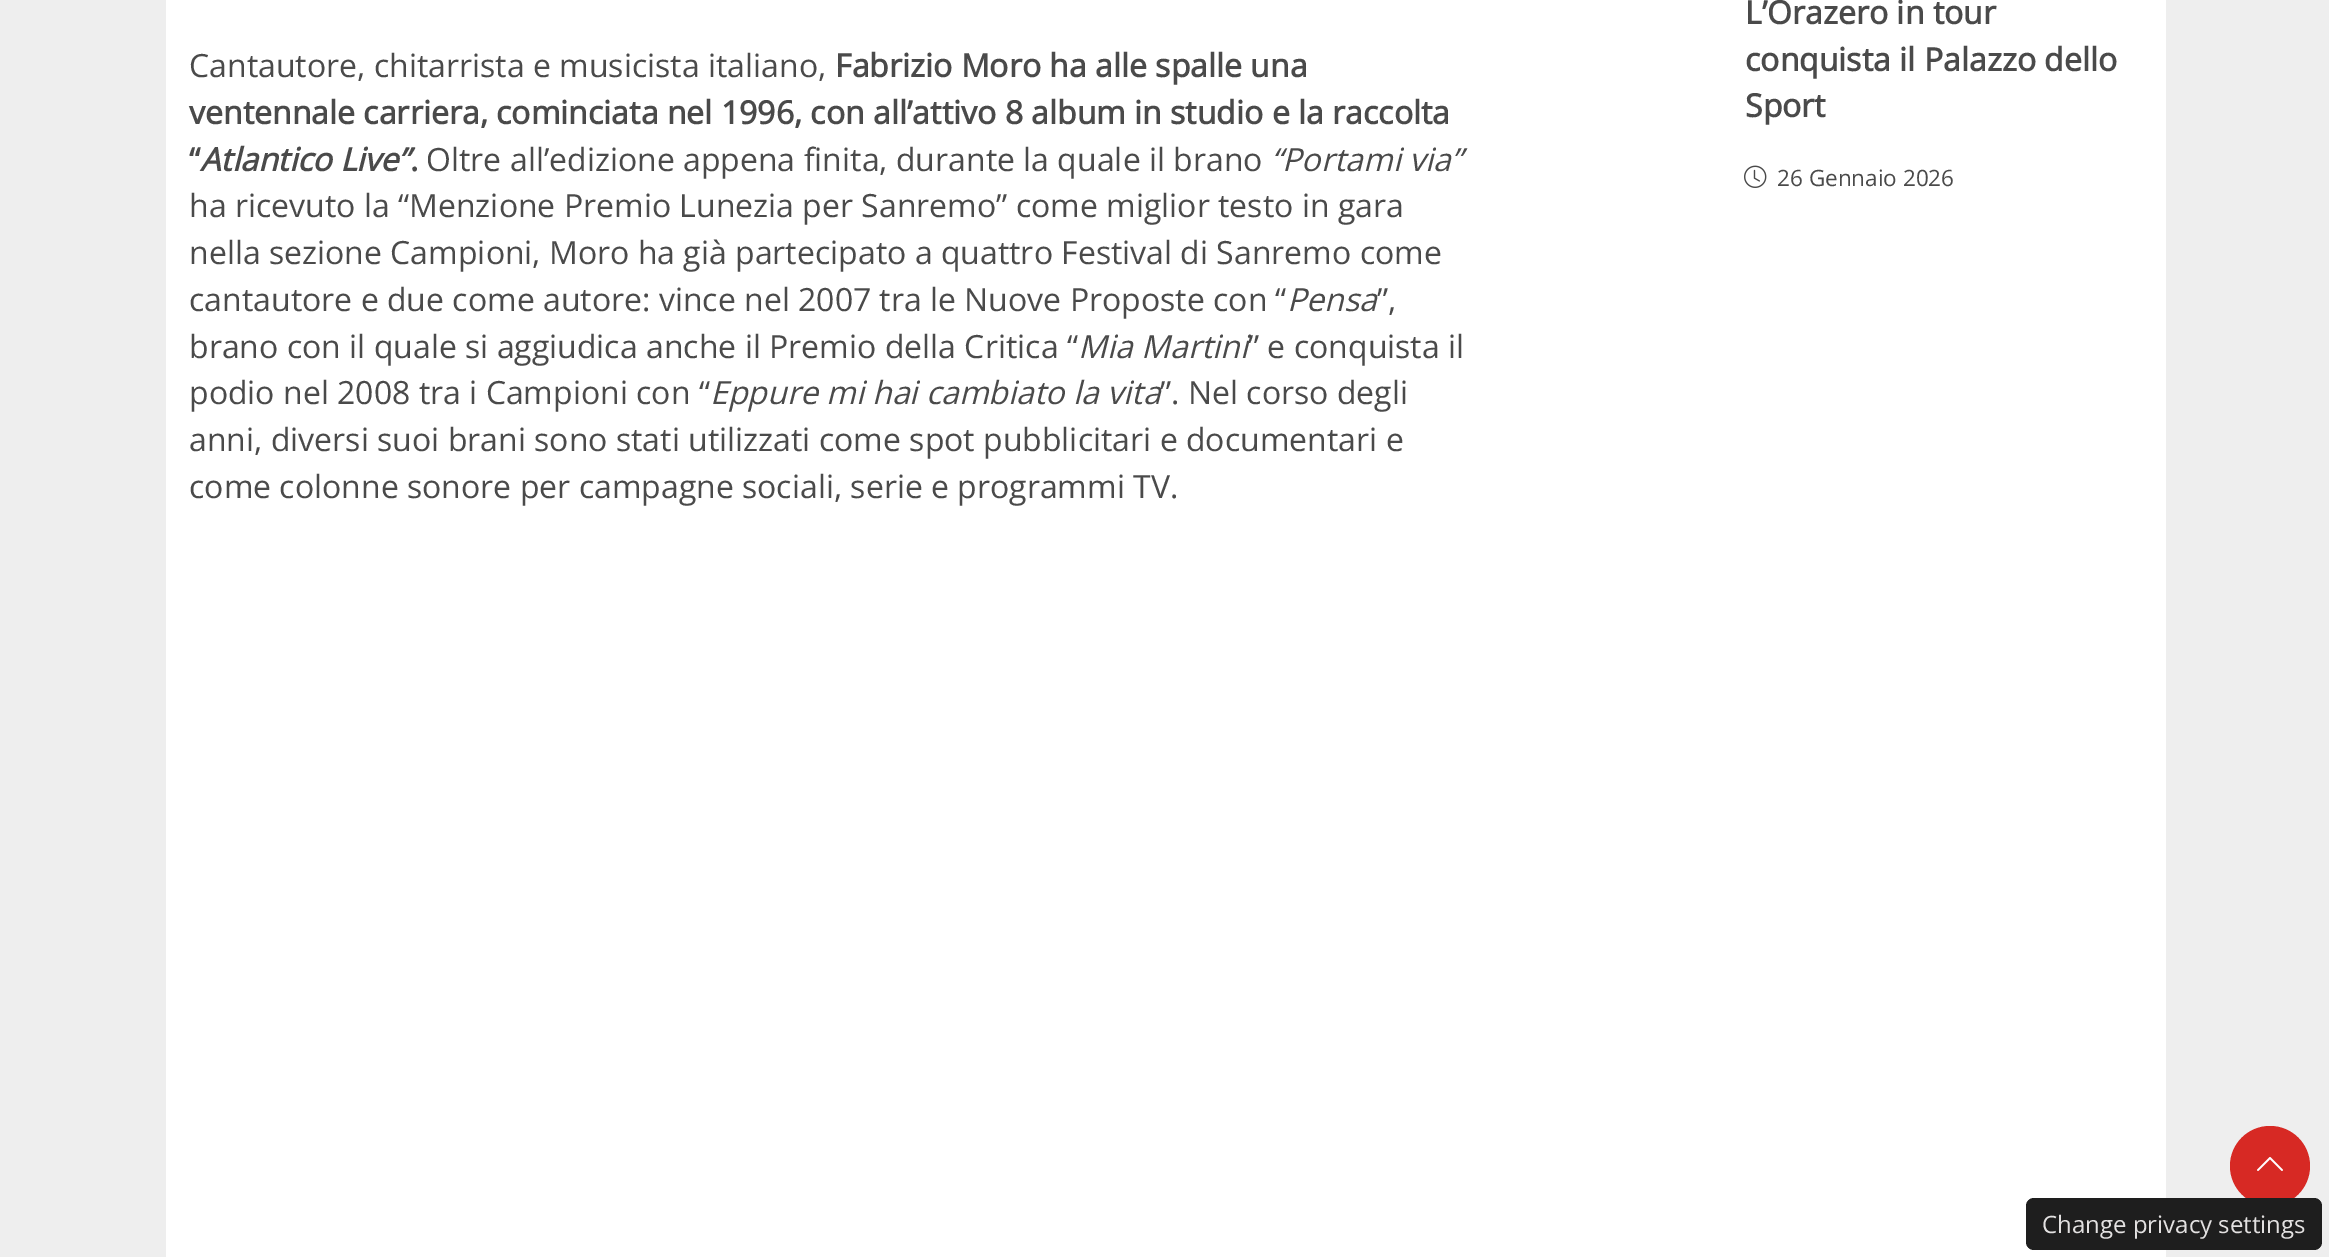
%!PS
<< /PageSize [2329 1257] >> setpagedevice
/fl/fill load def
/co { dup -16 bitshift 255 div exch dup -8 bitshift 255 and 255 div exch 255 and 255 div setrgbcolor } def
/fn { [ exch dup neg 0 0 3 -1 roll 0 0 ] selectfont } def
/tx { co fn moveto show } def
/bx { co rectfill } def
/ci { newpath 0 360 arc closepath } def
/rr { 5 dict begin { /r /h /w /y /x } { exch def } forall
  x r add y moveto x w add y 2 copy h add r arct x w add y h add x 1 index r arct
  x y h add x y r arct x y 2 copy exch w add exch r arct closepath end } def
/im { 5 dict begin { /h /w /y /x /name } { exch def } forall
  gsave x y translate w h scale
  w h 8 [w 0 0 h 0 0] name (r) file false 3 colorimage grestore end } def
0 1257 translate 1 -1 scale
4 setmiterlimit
0 0 2329 1257 16#EEEEEE bx
166 0 2000 1257 16#FFFFFF bx
(media/1.raw) 1744 165 23 23 im
16#D72924 co
2270 1166 40 ci fl
(media/2.raw) 2257 1157 26 14 im
16#1E1E1E co
2026 1198 296 52 8 rr fl
(Cantautore, chitarrista e musicista italiano,) 189 77 /OpenSans-Regular 32 16#4A4A4A tx
(Fabrizio Moro ha alle spalle una) 835 77 /OpenSans-Bold 32 16#4A4A4A tx
(ventennale carriera, cominciata nel 1996, con all’attivo 8 album in studio e la raccolta) 189 124 /OpenSans-Bold 32 16#4A4A4A tx
(“) 189 171 /OpenSans-Bold 32 16#4A4A4A tx
(Atlantico Live”) 200 171 /OpenSans-BoldItalic 32 16#4A4A4A tx
(Oltre all’edizione appena finita, durante la quale il brano) 426 171 /OpenSans-Regular 32 16#4A4A4A tx
(“Portami via”) 1271 171 /OpenSans-Italic 32 16#4A4A4A tx
(.) 410 171 /OpenSans-Bold 32 16#4A4A4A tx
(ha ricevuto la “Menzione Premio Lunezia per Sanremo” come miglior testo in gara) 189 217 /OpenSans-Regular 32 16#4A4A4A tx
(nella sezione Campioni, Moro ha già partecipato a quattro Festival di Sanremo come) 189 264 /OpenSans-Regular 32 16#4A4A4A tx
(cantautore e due come autore: vince nel 2007 tra le Nuove Proposte con “) 189 311 /OpenSans-Regular 32 16#4A4A4A tx
(Pensa) 1287 311 /OpenSans-Italic 32 16#4A4A4A tx
(”,) 1377 311 /OpenSans-Regular 32 16#4A4A4A tx
(brano con il quale si aggiudica anche il Premio della Critica “) 189 358 /OpenSans-Regular 32 16#4A4A4A tx
(Mia Martini) 1078 358 /OpenSans-Italic 32 16#4A4A4A tx
(” e conquista il) 1248 358 /OpenSans-Regular 32 16#4A4A4A tx
(podio nel 2008 tra i Campioni con “) 189 404 /OpenSans-Regular 32 16#4A4A4A tx
(Eppure mi hai cambiato la vita) 710 404 /OpenSans-Italic 32 16#4A4A4A tx
(”. Nel corso degli) 1160 404 /OpenSans-Regular 32 16#4A4A4A tx
(anni, diversi suoi brani sono stati utilizzati come spot pubblicitari e documentari e) 189 451 /OpenSans-Regular 32 16#4A4A4A tx
(come colonne sonore per campagne sociali, serie e programmi TV.) 189 498 /OpenSans-Regular 32 16#4A4A4A tx
(L’Orazero in tour) 1745 24 /OpenSans-Bold 32 16#4A4A4A tx
(conquista il Palazzo dello) 1745 71 /OpenSans-Bold 32 16#4A4A4A tx
(Sport) 1745 117 /OpenSans-Bold 32 16#4A4A4A tx
(26 Gennaio 2026) 1777 186 /OpenSans-Regular 22.5 16#4A4A4A tx
(Change privacy settings) 2042 1233 /OpenSans-Regular 24 16#E3E1E1 tx
showpage
